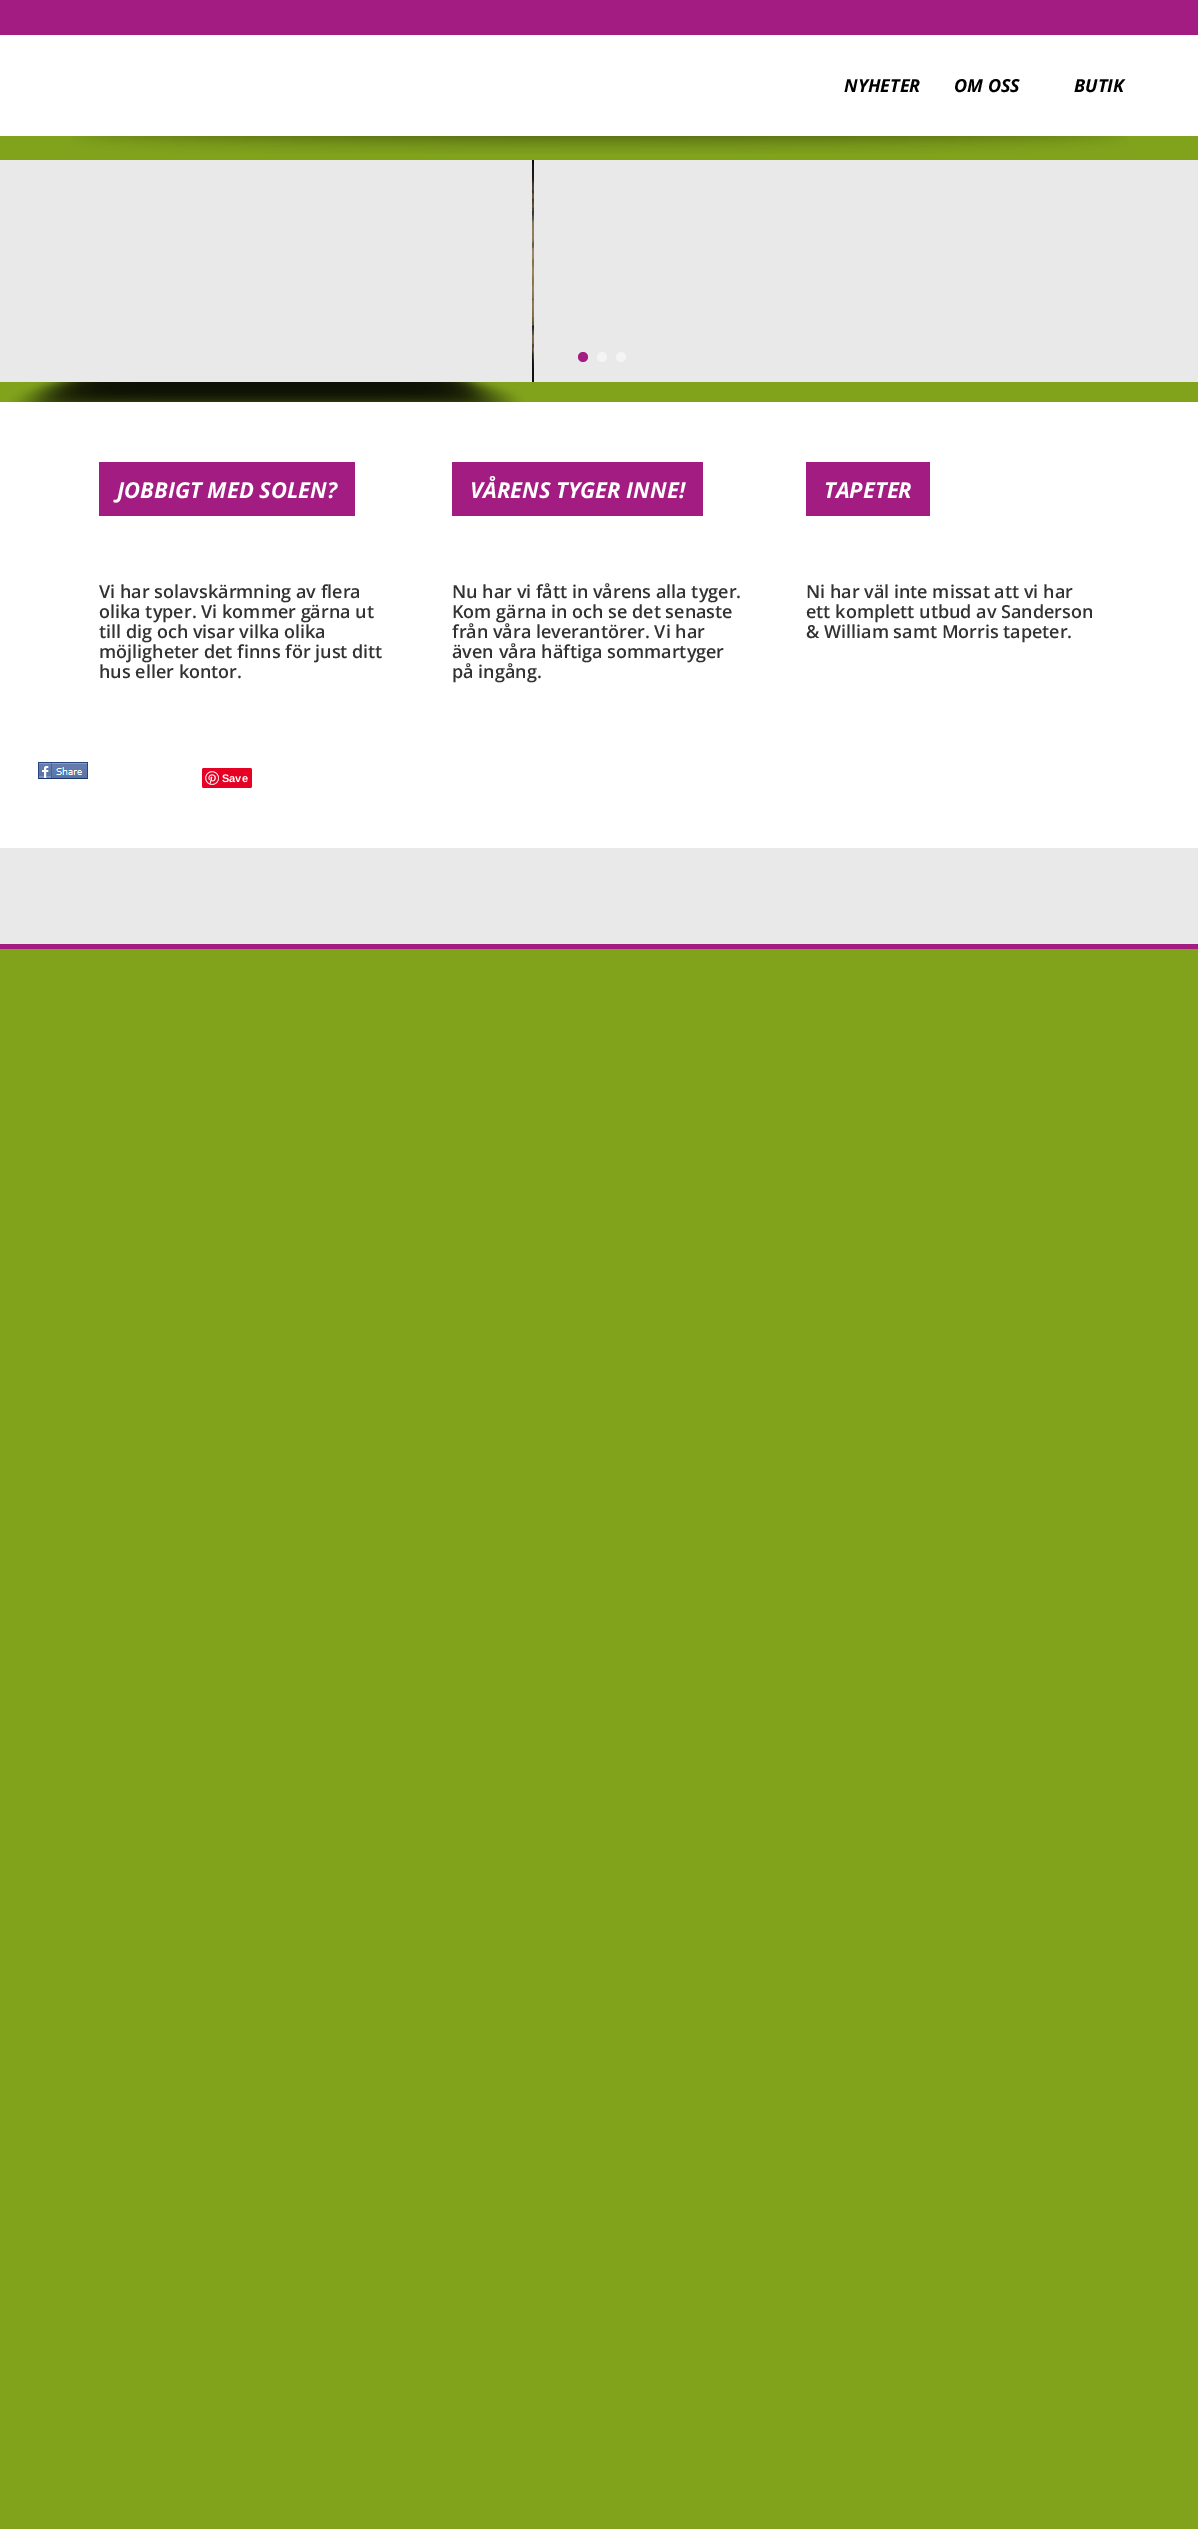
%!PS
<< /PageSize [1198 2529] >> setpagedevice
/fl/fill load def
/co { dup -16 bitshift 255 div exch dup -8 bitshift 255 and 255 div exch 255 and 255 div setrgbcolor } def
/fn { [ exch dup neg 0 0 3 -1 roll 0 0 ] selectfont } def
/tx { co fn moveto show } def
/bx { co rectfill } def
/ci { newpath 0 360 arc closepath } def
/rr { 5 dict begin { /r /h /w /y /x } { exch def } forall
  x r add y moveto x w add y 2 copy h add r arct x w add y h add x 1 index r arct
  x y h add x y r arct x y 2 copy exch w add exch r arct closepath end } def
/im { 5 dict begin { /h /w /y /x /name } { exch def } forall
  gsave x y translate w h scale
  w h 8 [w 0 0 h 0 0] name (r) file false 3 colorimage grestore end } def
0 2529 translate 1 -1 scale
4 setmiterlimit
0 0 1198 2529 16#81A31C bx
0 0 1198 35 16#A31C82 bx
0 35 1198 101 16#FFFFFF bx
(media/1.raw) 70 136 1058 18 im
0 160 1198 222 16#E9E9E9 bx
(media/2.raw) 532 160 2 222 im
16#A31C82 co
583 357 5 ci fl
16#F4F4F4 co
602 357 5 ci fl
621 357 5 ci fl
(media/3.raw) 9 382 515 20 im
0 402 1198 446 16#FFFFFF bx
99 462 256 54 16#A31C82 bx
452 462 251 54 16#A31C82 bx
806 462 124 54 16#A31C82 bx
(media/4.raw) 38 762 50 17 im
16#E60023 co
202 768 50 20 2 rr fl
(media/5.raw) 205 771 14 14 im
0 848 1198 96 16#E9E9E9 bx
0 944 1198 5 16#A31C82 bx
(NYHETER) 844 92 /OpenSans-BoldItalic 18 16#000000 tx
(OM OSS) 954 92 /OpenSans-BoldItalic 18 16#000000 tx
(BUTIK) 1074 92 /OpenSans-BoldItalic 18 16#000000 tx
(JOBBIGT MED SOLEN?) 117 498 /OpenSans-BoldItalic 22 16#FFFFFF tx
(Vi har solavskärmning av flera) 99 598 /OpenSans-SemiBold 18 16#323232 tx
(olika typer. Vi kommer gärna ut) 99 618 /OpenSans-SemiBold 18 16#323232 tx
(till dig och visar vilka olika) 99 638 /OpenSans-SemiBold 18 16#323232 tx
(möjligheter det finns för just ditt) 99 658 /OpenSans-SemiBold 18 16#323232 tx
(hus eller kontor.) 99 678 /OpenSans-SemiBold 18 16#323232 tx
(VÅRENS TYGER INNE!) 470 498 /OpenSans-BoldItalic 22 16#FFFFFF tx
(Nu har vi fått in vårens alla tyger.) 452 598 /OpenSans-SemiBold 18 16#323232 tx
(Kom gärna in och se det senaste) 452 618 /OpenSans-SemiBold 18 16#323232 tx
(från våra leverantörer. Vi har) 452 638 /OpenSans-SemiBold 18 16#323232 tx
(även våra häftiga sommartyger) 452 658 /OpenSans-SemiBold 18 16#323232 tx
(på ingång.) 452 678 /OpenSans-SemiBold 18 16#323232 tx
(TAPETER) 824 498 /OpenSans-BoldItalic 22 16#FFFFFF tx
(Ni har väl inte missat att vi har) 806 598 /OpenSans-SemiBold 18 16#323232 tx
(ett komplett utbud av Sanderson) 806 618 /OpenSans-SemiBold 18 16#323232 tx
(& William samt Morris tapeter.) 806 638 /OpenSans-SemiBold 18 16#323232 tx
(Save) 222 782 /LiberationSans-Bold 11 16#FFFFFF tx
showpage
